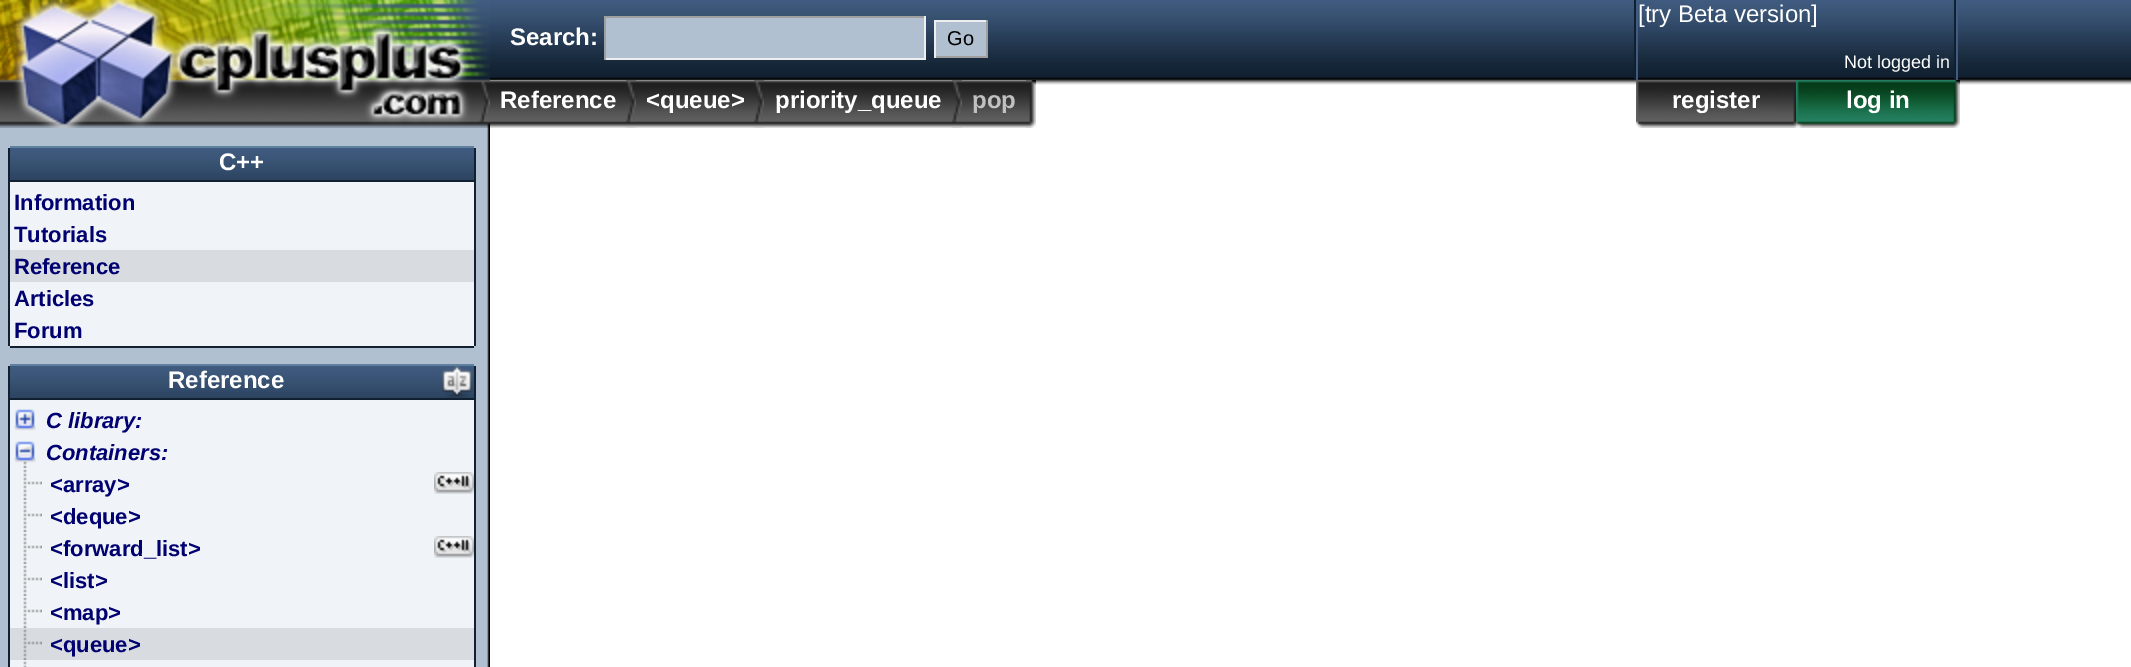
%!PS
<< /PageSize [2131 667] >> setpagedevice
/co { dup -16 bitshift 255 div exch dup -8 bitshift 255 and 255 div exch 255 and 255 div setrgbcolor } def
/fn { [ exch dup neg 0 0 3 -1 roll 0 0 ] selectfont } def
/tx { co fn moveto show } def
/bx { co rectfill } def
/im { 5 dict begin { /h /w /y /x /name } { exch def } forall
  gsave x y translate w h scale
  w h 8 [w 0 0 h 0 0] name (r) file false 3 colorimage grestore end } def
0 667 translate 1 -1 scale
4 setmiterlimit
0 0 2131 667 16#FFFFFF bx
(media/1.raw) 490 0 1641 128 im
(media/2.raw) 0 0 490 128 im
606 18 318 40 16#B0C0D0 bx
604 16 322 2 16#9F9F9F bx
924 16 2 44 16#EEEEEE bx
604 58 322 2 16#EEEEEE bx
604 16 2 44 16#9F9F9F bx
936 22 50 34 16#B0C0D0 bx
934 20 54 2 16#EEEEEE bx
986 20 2 38 16#9F9F9F bx
934 56 54 2 16#9F9F9F bx
934 20 2 38 16#EEEEEE bx
1956 0 2 80 16#405C80 bx
1634 0 2 80 16#102030 bx
(media/3.raw) 1638 0 316 80 im
1954 0 2 80 16#102030 bx
1636 0 2 80 16#405C80 bx
1636 80 160 1 16#606060 bx
(media/4.raw) 1636 81 160 47 im
(media/5.raw) 1796 80 164 48 im
(media/6.raw) 1026 80 10 48 im
(media/7.raw) 626 80 10 48 im
(media/8.raw) 490 80 136 48 im
(media/7.raw) 754 80 10 48 im
(media/9.raw) 636 80 118 48 im
(media/10.raw) 952 80 10 48 im
(media/11.raw) 764 80 188 48 im
(media/12.raw) 962 80 64 48 im
(media/13.raw) 0 128 490 539 im
10 182 464 164 16#F0F4F8 bx
474 148 2 198 16#102030 bx
8 148 2 198 16#102030 bx
(media/14.raw) 10 148 464 32 im
10 146 464 2 16#6080A0 bx
10 180 464 2 16#102030 bx
10 346 464 2 16#102030 bx
10 250 464 32 16#D8DCE0 bx
10 400 464 267 16#F0F4F8 bx
474 366 2 301 16#102030 bx
8 366 2 301 16#102030 bx
(media/14.raw) 10 366 464 32 im
10 364 464 2 16#6080A0 bx
10 398 464 2 16#102030 bx
(media/15.raw) 442 366 31 32 im
(media/16.raw) 14 409 22 22 im
(media/17.raw) 14 441 22 27 im
(media/18.raw) 23 469 19 31 im
(media/19.raw) 434 472 40 22 im
(media/18.raw) 23 501 19 31 im
(media/18.raw) 23 533 19 31 im
(media/19.raw) 434 536 40 22 im
(media/18.raw) 23 565 19 31 im
(media/18.raw) 23 597 19 31 im
10 628 464 32 16#D8DCE0 bx
(media/20.raw) 23 629 19 31 im
(media/21.raw) 23 661 4 6 im
(Search:) 510 45 /LiberationSans-Bold 24 16#FFFFFF tx
(Go) 947 45 /LiberationSans-Regular 20 16#000000 tx
([try Beta version]) 1638 22 /LiberationSans-Regular 24 16#FFFFFF tx
(Not logged in) 1844 68 /LiberationSans-Regular 18 16#FFFFFF tx
(register) 1672 108 /LiberationSans-Bold 24 16#FFFFFF tx
(log in) 1846 108 /LiberationSans-Bold 24 16#FFFFFF tx
(Reference) 500 108 /LiberationSans-Bold 24 16#FFFFFF tx
(<queue>) 646 108 /LiberationSans-Bold 24 16#FFFFFF tx
(priority_queue) 775 108 /LiberationSans-Bold 24 16#FFFFFF tx
(pop) 972 108 /LiberationSans-Bold 24 16#C0C0C0 tx
(C++) 219 170 /LiberationSans-Bold 24 16#FFFFFF tx
(Information) 14 210 /LiberationSans-Bold 22 16#000070 tx
(Tutorials) 14 242 /LiberationSans-Bold 22 16#000070 tx
(Reference) 14 274 /LiberationSans-Bold 22 16#000070 tx
(Articles) 14 306 /LiberationSans-Bold 22 16#000070 tx
(Forum) 14 338 /LiberationSans-Bold 22 16#000070 tx
(Reference) 168 388 /LiberationSans-Bold 24 16#FFFFFF tx
(C library:) 46 428 /LiberationSans-BoldItalic 22 16#000070 tx
(Containers:) 46 460 /LiberationSans-BoldItalic 22 16#000070 tx
(<array>) 50 492 /LiberationSans-Bold 22 16#000070 tx
(<deque>) 50 524 /LiberationSans-Bold 22 16#000070 tx
(<forward_list>) 50 556 /LiberationSans-Bold 22 16#000070 tx
(<list>) 50 588 /LiberationSans-Bold 22 16#000070 tx
(<map>) 50 620 /LiberationSans-Bold 22 16#000070 tx
(<queue>) 50 652 /LiberationSans-Bold 22 16#000070 tx
showpage
